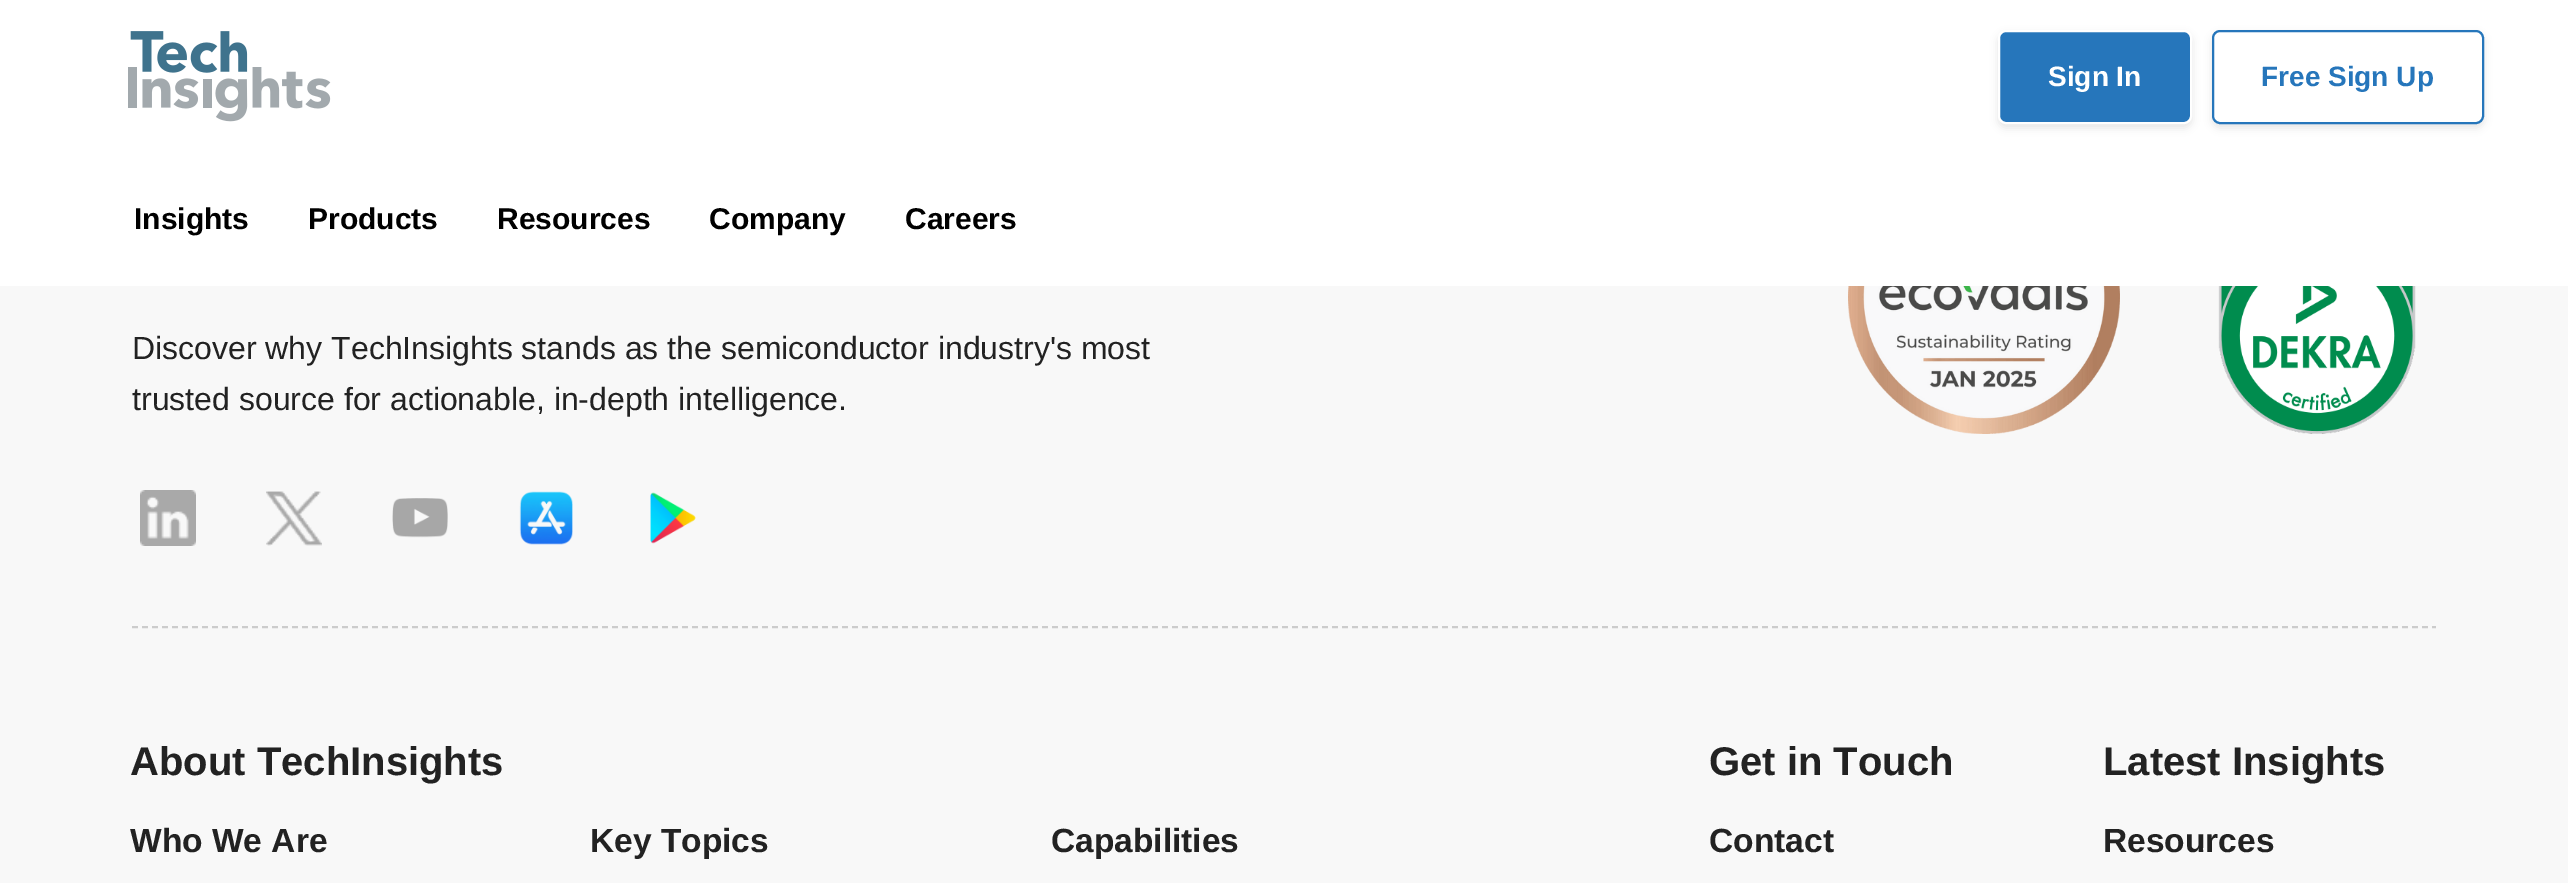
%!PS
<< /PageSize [2568 883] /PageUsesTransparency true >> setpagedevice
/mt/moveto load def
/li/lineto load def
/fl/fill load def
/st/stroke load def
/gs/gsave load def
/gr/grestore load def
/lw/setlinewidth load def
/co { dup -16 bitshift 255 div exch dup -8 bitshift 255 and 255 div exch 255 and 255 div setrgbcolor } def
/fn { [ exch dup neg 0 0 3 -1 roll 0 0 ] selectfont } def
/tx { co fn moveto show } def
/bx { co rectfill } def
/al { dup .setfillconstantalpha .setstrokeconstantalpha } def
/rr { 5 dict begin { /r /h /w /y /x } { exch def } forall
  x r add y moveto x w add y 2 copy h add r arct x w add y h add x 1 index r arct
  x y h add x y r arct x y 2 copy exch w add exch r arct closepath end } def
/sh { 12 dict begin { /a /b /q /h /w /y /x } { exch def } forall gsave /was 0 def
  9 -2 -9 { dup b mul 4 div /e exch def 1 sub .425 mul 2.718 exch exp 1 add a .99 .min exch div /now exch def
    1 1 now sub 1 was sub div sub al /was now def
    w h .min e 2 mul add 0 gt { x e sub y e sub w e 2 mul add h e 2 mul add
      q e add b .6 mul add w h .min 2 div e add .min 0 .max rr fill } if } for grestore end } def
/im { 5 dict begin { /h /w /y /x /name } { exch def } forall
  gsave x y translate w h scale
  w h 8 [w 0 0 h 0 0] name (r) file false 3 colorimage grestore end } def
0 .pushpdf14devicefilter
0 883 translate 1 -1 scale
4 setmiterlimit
0 0 2568 883 16#F8F8F8 bx
0 0 2568 286 16#FFFFFF bx
(media/1.raw) 128 31 203 91 im
16#000000 co
1998 34 194 94 8 4 .1 sh
16#2676BB co
1999 31 192 92 7 rr gs fl gr
16#FFFFFF co
2 lw
st
16#000000 co
2212 34 272 94 8 4 .1 sh
16#FFFFFF co
2213 31 270 92 7 rr gs fl gr
16#2676BB co
st
(media/2.raw) 140 490 56 56 im
(media/3.raw) 266 491 56 55 im
(media/4.raw) 392 498 56 40 im
(media/5.raw) 519 491 54 54 im
(media/6.raw) 650 492 46 52 im
(media/7.raw) 1848 286 272 148 im
(media/8.raw) 2218 286 198 148 im
16#CCCCCC co
[6 4] 0 setdash
132 627 mt 2436 627 li st
(Sign In) 2048 86 /LiberationSans-Bold 28 16#FFFFFF tx
(Free Sign Up) 2261 86 /LiberationSans-Bold 28 16#2676BB tx
(Insights) 134 229 /LiberationSans-Bold 30 16#000000 tx
(Products) 308 229 /LiberationSans-Bold 30 16#000000 tx
(Resources) 497 229 /LiberationSans-Bold 30 16#000000 tx
(Company) 709 229 /LiberationSans-Bold 30 16#000000 tx
(Careers) 905 229 /LiberationSans-Bold 30 16#000000 tx
(Discover why TechInsights stands as the semiconductor industry's most) 132 359 /LiberationSans-Regular 32 16#222222 tx
(trusted source for actionable, in-depth intelligence.) 132 410 /LiberationSans-Regular 32 16#222222 tx
(About TechInsights) 130 775 /LiberationSans-Bold 40 16#222222 tx
(Who We Are) 130 852 /LiberationSans-Bold 33.5 16#222222 tx
(Key Topics) 590 852 /LiberationSans-Bold 33.5 16#222222 tx
(Capabilities) 1051 852 /LiberationSans-Bold 33.5 16#222222 tx
(Get in Touch) 1709 775 /LiberationSans-Bold 40 16#222222 tx
(Contact) 1709 852 /LiberationSans-Bold 33.5 16#222222 tx
(Latest Insights) 2103 775 /LiberationSans-Bold 40 16#222222 tx
(Resources) 2103 852 /LiberationSans-Bold 33.5 16#222222 tx
.poppdf14devicefilter showpage
